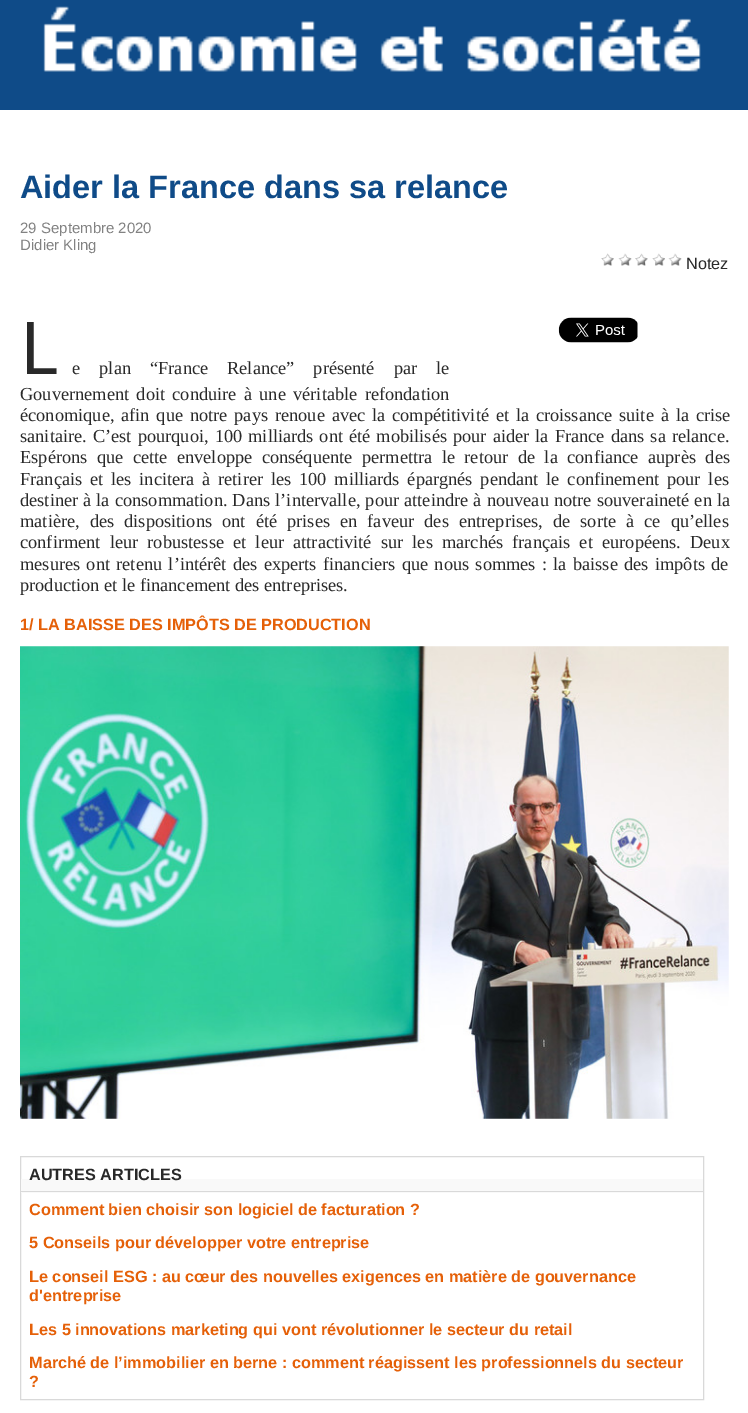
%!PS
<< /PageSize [748 1413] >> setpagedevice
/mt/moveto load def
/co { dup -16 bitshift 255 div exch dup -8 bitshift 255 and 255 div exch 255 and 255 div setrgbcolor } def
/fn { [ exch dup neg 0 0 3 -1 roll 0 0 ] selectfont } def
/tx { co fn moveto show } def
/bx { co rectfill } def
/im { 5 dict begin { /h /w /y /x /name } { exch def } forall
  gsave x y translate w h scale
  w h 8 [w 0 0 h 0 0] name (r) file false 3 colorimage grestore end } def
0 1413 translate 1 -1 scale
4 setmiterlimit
0 0 748 1413 16#FFFFFF bx
(media/1.raw) 0 0 748 110 im
(media/2.raw) 601 253 13 13 im
(media/3.raw) 618 253 14 13 im
(media/4.raw) 635 253 13 13 im
(media/5.raw) 652 253 13 13 im
(media/3.raw) 668 253 14 13 im
(media/6.raw) 558 317 80 26 im
(media/7.raw) 20 646 709 473 im
16#D9D9D9 co
20.5 1156.5 683 243 rectstroke
21 1179 682 14 16#F9F9F9 bx
21 1191 682 1 16#D9D9D9 bx
(Aider la France dans sa relance) 20 198 /LiberationSans-Bold 32.5 16#0F4B88 tx
(29 Septembre 2020) 20 233 /LiberationSans-Regular 15 16#828282 tx
(Didier Kling) 20 250 /LiberationSans-Regular 15 16#828282 tx
(Notez) 686 269 /LiberationSans-Regular 16.25 16#292929 tx
(L) 20 374 /NotoSans-Regular 73 16#292929 tx
/LiberationSerif-Regular 18.35 fn
72 374 mt 14.5 0 32 (e plan “France Relance” présenté par le) widthshow
20 400 mt 2.75 0 32 (Gouvernement doit conduire à une véritable refondation) widthshow
20 421 mt 2.25 0 32 (économique, afin que notre pays renoue avec la compétitivité et la croissance suite à la crise) widthshow
20 442 mt 1.5 0 32 (sanitaire. C’est pourquoi, 100 milliards ont été mobilisés pour aider la France dans sa relance.) widthshow
20 463 mt 4.9 0 32 (Espérons que cette enveloppe conséquente permettra le retour de la confiance auprès des) widthshow
20 485 mt 3.25 0 32 (Français et les incitera à retirer les 100 milliards épargnés pendant le confinement pour les) widthshow
20 506 mt .5 0 32 (destiner à la consommation. Dans l’intervalle, pour atteindre à nouveau notre souveraineté en la) widthshow
20 527 mt 5.5 0 32 (matière, des dispositions ont été prises en faveur des entreprises, de sorte à ce qu’elles) widthshow
20 548 mt 4.6 0 32 (confirment leur robustesse et leur attractivité sur les marchés français et européens. Deux) widthshow
20 570 mt 1.75 0 32 (mesures ont retenu l’intérêt des experts financiers que nous sommes : la baisse des impôts de) widthshow
(production et le financement des entreprises.) 20 591 /LiberationSerif-Regular 18.35 16#292929 tx
(1/ LA BAISSE DES IMPÔTS DE PRODUCTION) 20 630 /LiberationSans-Bold 16.25 16#E56008 tx
(AUTRES ARTICLES) 29 1180 /LiberationSans-Bold 16.25 16#292929 tx
(Comment bien choisir son logiciel de facturation ?) 29 1215 /LiberationSans-Bold 16.25 16#E56008 tx
(5 Conseils pour développer votre entreprise) 29 1248 /LiberationSans-Bold 16.25 16#E56008 tx
(Le conseil ESG : au cœur des nouvelles exigences en matière de gouvernance) 29 1282 /LiberationSans-Bold 16.25 16#E56008 tx
(d'entreprise) 29 1301 /LiberationSans-Bold 16.25 16#E56008 tx
(Les 5 innovations marketing qui vont révolutionner le secteur du retail) 29 1335 /LiberationSans-Bold 16.25 16#E56008 tx
(Marché de l’immobilier en berne : comment réagissent les professionnels du secteur) 29 1368 /LiberationSans-Bold 16.25 16#E56008 tx
(?) 29 1387 /LiberationSans-Bold 16.25 16#E56008 tx
showpage
